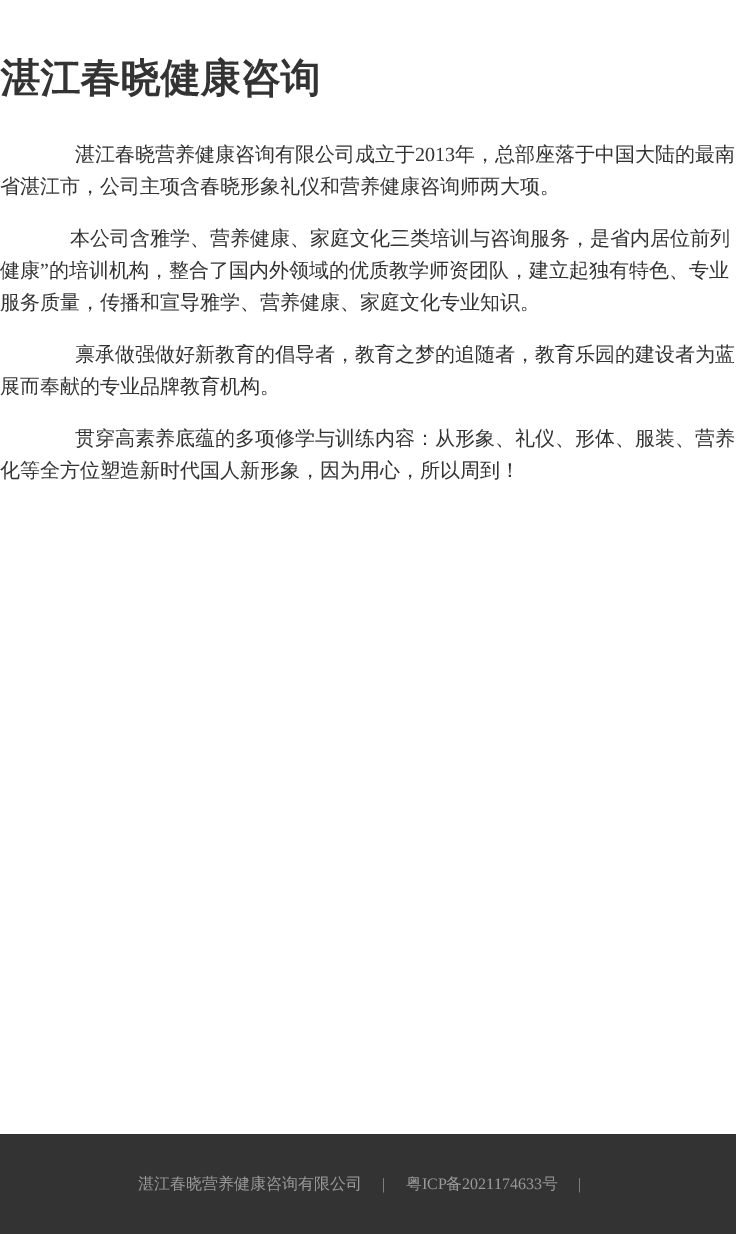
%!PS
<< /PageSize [736 1234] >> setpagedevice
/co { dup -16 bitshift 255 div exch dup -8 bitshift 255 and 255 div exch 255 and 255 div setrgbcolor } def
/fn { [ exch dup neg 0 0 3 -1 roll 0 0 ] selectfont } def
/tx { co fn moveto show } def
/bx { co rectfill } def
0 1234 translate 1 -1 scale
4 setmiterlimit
0 0 736 1234 16#FFFFFF bx
0 1134 736 100 16#333333 bx
(湛江春晓健康咨询) 0 92 /WenQuanYiZenHei-Bold 40 16#333333 tx
(湛江春晓营养健康咨询有限公司成立于) 75 161 /WenQuanYiZenHei-Medium 20 16#333333 tx
(2013) 415 161 /LiberationSerif-Regular 20 16#333333 tx
(年，总部座落于中国大陆的最南) 455 161 /WenQuanYiZenHei-Medium 20 16#333333 tx
(省湛江市，公司主项含春晓形象礼仪和营养健康咨询师两大项。) 0 193 /WenQuanYiZenHei-Medium 20 16#333333 tx
(本公司含雅学、营养健康、家庭文化三类培训与咨询服务，是省内居位前列) 70 245 /WenQuanYiZenHei-Medium 20 16#333333 tx
(健康) 0 277 /WenQuanYiZenHei-Medium 20 16#333333 tx
(”) 40 277 /LiberationSerif-Regular 20 16#333333 tx
(的培训机构，整合了国内外领域的优质教学师资团队，建立起独有特色、专业) 49 277 /WenQuanYiZenHei-Medium 20 16#333333 tx
(服务质量，传播和宣导雅学、营养健康、家庭文化专业知识。) 0 309 /WenQuanYiZenHei-Medium 20 16#333333 tx
(禀承做强做好新教育的倡导者，教育之梦的追随者，教育乐园的建设者为蓝) 75 361 /WenQuanYiZenHei-Medium 20 16#333333 tx
(展而奉献的专业品牌教育机构。) 0 393 /WenQuanYiZenHei-Medium 20 16#333333 tx
(贯穿高素养底蕴的多项修学与训练内容：从形象、礼仪、形体、服装、营养) 75 445 /WenQuanYiZenHei-Medium 20 16#333333 tx
(化等全方位塑造新时代国人新形象，因为用心，所以周到！) 0 477 /WenQuanYiZenHei-Medium 20 16#333333 tx
(湛江春晓营养健康咨询有限公司) 138 1189 /WenQuanYiZenHei-Medium 16 16#999999 tx
(|) 382 1189 /LiberationSerif-Regular 16 16#999999 tx
(粤) 406 1189 /WenQuanYiZenHei-Medium 16 16#999999 tx
(ICP) 422 1189 /LiberationSerif-Regular 16 16#999999 tx
(备) 446 1189 /WenQuanYiZenHei-Medium 16 16#999999 tx
(2021174633) 462 1189 /LiberationSerif-Regular 16 16#999999 tx
(号) 542 1189 /WenQuanYiZenHei-Medium 16 16#999999 tx
(|) 578 1189 /LiberationSerif-Regular 16 16#999999 tx
showpage
